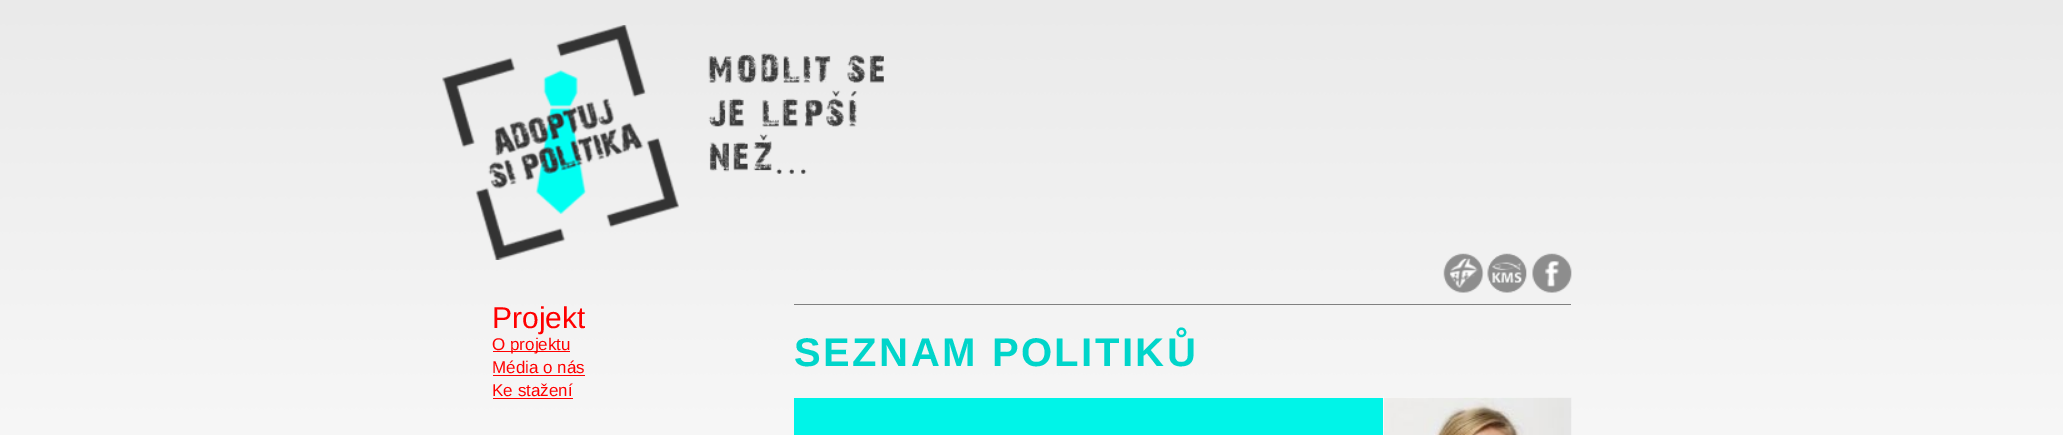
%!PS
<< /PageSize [2063 435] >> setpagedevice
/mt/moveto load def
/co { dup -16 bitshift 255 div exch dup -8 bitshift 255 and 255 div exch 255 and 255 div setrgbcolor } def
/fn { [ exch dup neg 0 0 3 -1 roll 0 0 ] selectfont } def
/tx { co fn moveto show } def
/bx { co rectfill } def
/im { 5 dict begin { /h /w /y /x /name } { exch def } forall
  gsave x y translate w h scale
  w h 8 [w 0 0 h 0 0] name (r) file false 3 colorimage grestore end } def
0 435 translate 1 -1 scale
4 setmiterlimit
0 0 2063 435 16#FFFFFF bx
(media/1.raw) 0 0 2063 435 im
(media/2.raw) 442 25 237 235 im
(media/3.raw) 708 53 176 121 im
(media/4.raw) 1443 253 41 40 im
(media/5.raw) 1487 253 40 40 im
(media/6.raw) 1532 253 40 40 im
493 351 77 1 16#FF0000 bx
493 375 92 1 16#FF0000 bx
493 398 80 1 16#FF0000 bx
794 304 777 1 16#808080 bx
794 398 589 37 16#00F4E8 bx
1383 397 188 38 16#FFFFFF bx
(media/7.raw) 1383 397 189 38 im
(Projekt) 492 328 /LiberationSans-Regular 30 16#FF0000 tx
(O projektu) 492 350 /LiberationSans-Regular 17 16#FF0000 tx
(Média o nás) 492 373 /LiberationSans-Regular 17 16#FF0000 tx
(Ke stažení) 492 396 /LiberationSans-Regular 17 16#FF0000 tx
/LiberationSans-Bold 40 fn
16#00D5CA co
794 366 mt 2.5 0 (SEZNAM POLITIKŮ) ashow
showpage
